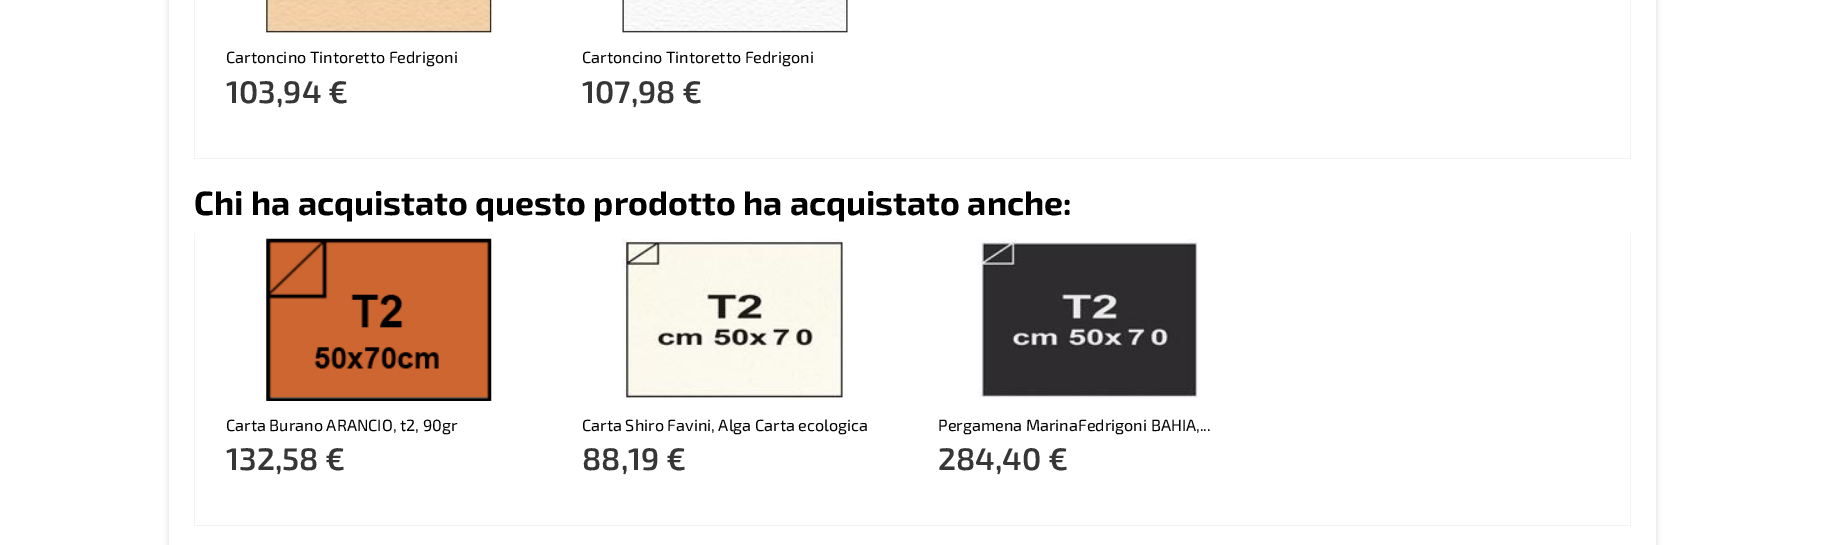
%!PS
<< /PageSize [1825 545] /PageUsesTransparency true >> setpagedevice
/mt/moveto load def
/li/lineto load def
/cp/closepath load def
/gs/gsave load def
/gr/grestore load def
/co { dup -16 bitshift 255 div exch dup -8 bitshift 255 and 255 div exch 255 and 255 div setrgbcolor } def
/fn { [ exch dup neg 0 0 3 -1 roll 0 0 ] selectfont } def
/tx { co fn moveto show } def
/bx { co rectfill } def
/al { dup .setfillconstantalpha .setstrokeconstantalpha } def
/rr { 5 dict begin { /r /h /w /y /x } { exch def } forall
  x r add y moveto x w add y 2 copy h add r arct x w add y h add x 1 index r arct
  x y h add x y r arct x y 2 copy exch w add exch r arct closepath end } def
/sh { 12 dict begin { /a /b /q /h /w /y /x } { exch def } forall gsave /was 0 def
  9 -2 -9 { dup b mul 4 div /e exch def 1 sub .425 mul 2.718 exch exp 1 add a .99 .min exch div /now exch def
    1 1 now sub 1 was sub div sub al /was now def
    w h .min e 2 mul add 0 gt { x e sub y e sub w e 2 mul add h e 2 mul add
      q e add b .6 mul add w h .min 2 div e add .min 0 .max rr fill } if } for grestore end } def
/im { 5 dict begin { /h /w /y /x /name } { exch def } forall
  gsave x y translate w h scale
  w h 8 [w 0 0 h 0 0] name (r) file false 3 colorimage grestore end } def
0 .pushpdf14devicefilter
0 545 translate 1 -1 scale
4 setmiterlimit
0 0 1825 545 16#FFFFFF bx
gs
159 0 mt 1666 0 li 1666 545 li 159 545 li cp 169 -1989 mt 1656 -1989 li 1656 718 li 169 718 li cp eoclip newpath
16#D5D5D5 co
169 -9 1487 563 0 3 1 sh
gr
1630 0 1 159 16#F3F3F3 bx
194 158 1437 1 16#F3F3F3 bx
194 0 1 159 16#F3F3F3 bx
(media/1.raw) 266 0 226 33 im
(media/2.raw) 622 0 226 33 im
1630 233 1 293 16#F3F3F3 bx
194 525 1437 1 16#F3F3F3 bx
194 233 1 293 16#F3F3F3 bx
(media/3.raw) 266 238 226 163 im
(media/4.raw) 622 238 221 161 im
(media/5.raw) 977 239 221 159 im
(Cartoncino Tintoretto Fedrigoni) 226 63 /Exo2-Regular 16.25 16#000000 tx
(103,94 €) 226 103 /Exo2-SemiBold 31.25 16#363636 tx
(Cartoncino Tintoretto Fedrigoni) 582 63 /Exo2-Regular 16.25 16#000000 tx
(107,98 €) 582 103 /Exo2-SemiBold 31.25 16#363636 tx
(Chi ha acquistato questo prodotto ha acquistato anche:) 194 215 /Exo2-Bold 33.75 16#000000 tx
(Carta Burano ARANCIO, t2, 90gr) 226 431 /Exo2-Regular 16.25 16#000000 tx
(132,58 €) 226 470 /Exo2-SemiBold 31.25 16#363636 tx
(Carta Shiro Favini, Alga Carta ecologica) 582 431 /Exo2-Regular 16.25 16#000000 tx
(88,19 €) 582 470 /Exo2-SemiBold 31.25 16#363636 tx
(Pergamena MarinaFedrigoni BAHIA,...) 938 431 /Exo2-Regular 16.25 16#000000 tx
(284,40 €) 938 470 /Exo2-SemiBold 31.25 16#363636 tx
.poppdf14devicefilter showpage
